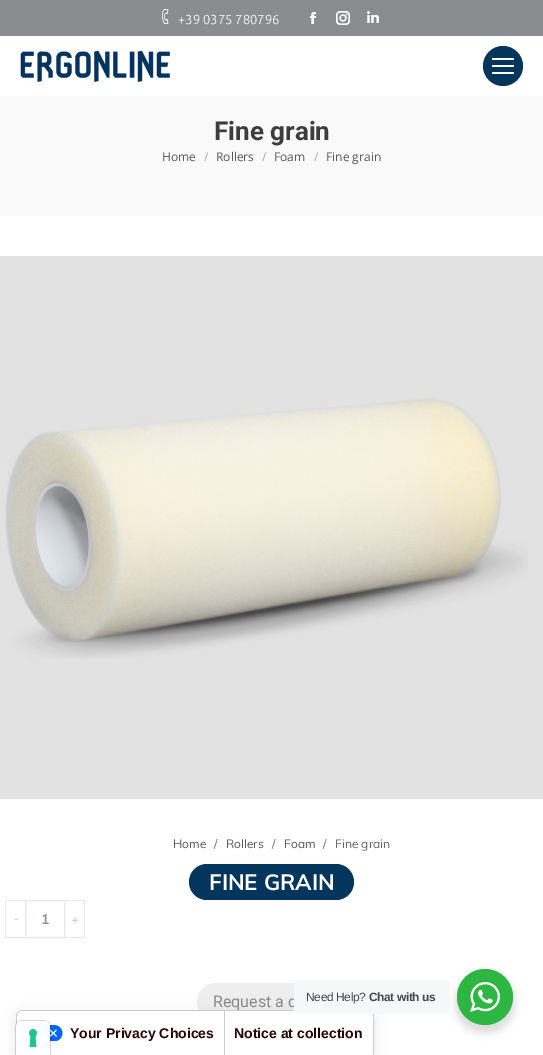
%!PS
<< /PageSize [543 1055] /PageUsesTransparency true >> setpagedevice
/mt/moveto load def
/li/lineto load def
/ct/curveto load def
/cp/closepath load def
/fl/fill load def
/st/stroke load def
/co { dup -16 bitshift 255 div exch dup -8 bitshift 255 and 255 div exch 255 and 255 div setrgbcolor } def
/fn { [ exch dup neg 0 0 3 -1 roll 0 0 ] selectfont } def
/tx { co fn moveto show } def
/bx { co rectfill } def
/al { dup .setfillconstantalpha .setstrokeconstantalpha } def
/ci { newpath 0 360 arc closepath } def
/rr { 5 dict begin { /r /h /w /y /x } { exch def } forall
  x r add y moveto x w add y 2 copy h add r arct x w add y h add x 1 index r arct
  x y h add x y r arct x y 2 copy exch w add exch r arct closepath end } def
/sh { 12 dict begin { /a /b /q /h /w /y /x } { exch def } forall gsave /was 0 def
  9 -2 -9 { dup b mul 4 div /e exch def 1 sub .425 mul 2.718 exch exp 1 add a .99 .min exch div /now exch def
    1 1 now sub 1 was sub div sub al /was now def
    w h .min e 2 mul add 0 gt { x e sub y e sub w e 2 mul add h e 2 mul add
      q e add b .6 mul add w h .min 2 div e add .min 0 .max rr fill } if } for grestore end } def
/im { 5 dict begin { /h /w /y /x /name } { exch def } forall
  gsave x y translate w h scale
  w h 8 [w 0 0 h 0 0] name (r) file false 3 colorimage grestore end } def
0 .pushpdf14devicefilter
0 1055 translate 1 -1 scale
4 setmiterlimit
0 0 543 1055 16#FFFFFF bx
65 937 20 1 16#E7E7E7 bx
0 0 543 36 16#898D8D bx
(media/1.raw) 161 9 8 15 im
(media/2.raw) 310 12 6 12 im
(media/3.raw) 336 11 14 14 im
(media/4.raw) 367 11 12 12 im
(media/5.raw) 20 50 150 32 im
16#04355D co
503 66 20 ci fl
492 65 22 2 16#FFFFFF bx
492 58 22 2 16#FFFFFF bx
492 72 22 2 16#FFFFFF bx
0 96 543 120 16#F9F9F9 bx
0 256 543 543 16#E2E2E2 bx
(media/6.raw) 5 398 523 261 im
16#04355D co
189 864 165 36 18 rr fl
6 900 19 1 16#E7E7E7 bx
6 937 19 1 16#E7E7E7 bx
5 901 1 37 16#E7E7E7 bx
25.5 900.5 39 37 rectstroke
65 900 20 1 16#E7E7E7 bx
84 901 1 37 16#E7E7E7 bx
84 937 1 1 16#D1D1D1 bx
16#EEEEEE co
197 983 149 38 19 rr fl
16#000000 co
455 973 60 60 30 4 .14 sh
16#2DB742 co
485 997 28 ci fl
(media/7.raw) 470 982 30 30 im
16#000000 co
16 1014 358 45 6 7 .1 sh
(+39 0375 780796) 178 24 /Ubuntu-Light 13 16#FFFFFF tx
(Fine grain) 214 140 /Roboto-Bold 26 16#3D3D3D tx
(Home) 162 161 /OpenSans-Regular 12 16#595958 tx
(/) 204 161 /OpenSans-Regular 12 16#A9A9A9 tx
(Rollers) 216 161 /OpenSans-Regular 12 16#595958 tx
(/) 262 161 /OpenSans-Regular 12 16#A9A9A9 tx
(Foam) 274 161 /OpenSans-Regular 12 16#595958 tx
(/) 314 161 /OpenSans-Regular 12 16#A9A9A9 tx
(Fine grain) 326 161 /OpenSans-Regular 12 16#595958 tx
(Home) 173 848 /Muli-Regular 12 16#595958 tx
(/) 214 848 /Muli-Regular 12 16#666666 tx
(Rollers) 226 848 /Muli-Regular 12 16#595958 tx
(/) 272 848 /Muli-Regular 12 16#666666 tx
(Foam) 284 848 /Muli-Regular 12 16#595958 tx
(/) 323 848 /Muli-Regular 12 16#666666 tx
(Fine grain) 335 848 /Muli-Regular 12 16#666666 tx
(FINE GRAIN) 209 890 /Muli-Bold 22 16#FFFFFF tx
(-) 14 923 /LiberationSans-Regular 14 16#C6CAD1 tx
(1) 41 924 /Muli-Bold 14 16#8C95A2 tx
(+) 71 925 /LiberationSans-Regular 14 16#C6CAD1 tx
(Request a q) 213 1007 /Roboto-Regular 16 16#888888 tx
16#FFFFFF co
22 1010 mt 368 1010 li 371.5 1010 374 1012.5 374 1016 ct 374 1055 li 16 1055 li 16 1016 li 16 1012.5 18.5 1010 22 1010 ct cp fl
16#CCCCCC co
22 1010 mt 368 1010 li 371 1010 374 1013 374 1016 ct 374 1055 li 16 1055 li 16 1016 li 16 1013 19 1010 22 1010 ct cp 22 1011 mt 368 1011 li 371 1011 373 1013 373 1016 ct 373 1055 li 17 1055 li 17 1016 li 17 1013 19 1011 22 1011 ct cp eofill
16#F5F7F9 co
294 980 156 34 4 rr fl
/LiberationSans-Bold 12 fn
16#43474E co
369 1001 mt -.4 0 (Chat with us) ashow
/LiberationSans-Regular 12 fn
306 1001 mt -.4 0 (Need Help?) ashow
224 1011 1 44 16#CCCCCC bx
(media/9.raw) 49 1025 14 16 im
0.15 al
16#000000 co
22 1020.5 mt 44 1020.5 li 47.5 1020.5 50.5 1023.5 50.5 1027 ct 50.5 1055.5 li 15.5 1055.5 li 15.5 1027 li 15.5 1023.5 18.5 1020.5 22 1020.5 ct cp st
1 al
16#FFFFFF co
22 1021 mt 44 1021 li 47.5 1021 50 1023.5 50 1027 ct 50 1055 li 16 1055 li 16 1027 li 16 1023.5 18.5 1021 22 1021 ct cp fl
(media/8.raw) 29 1029 8 18 im
(Your Privacy Choices) 70 1038 /LiberationSans-Bold 14 16#280404 tx
(Notice at collection) 234 1038 /LiberationSans-Bold 14 16#280404 tx
.poppdf14devicefilter showpage
